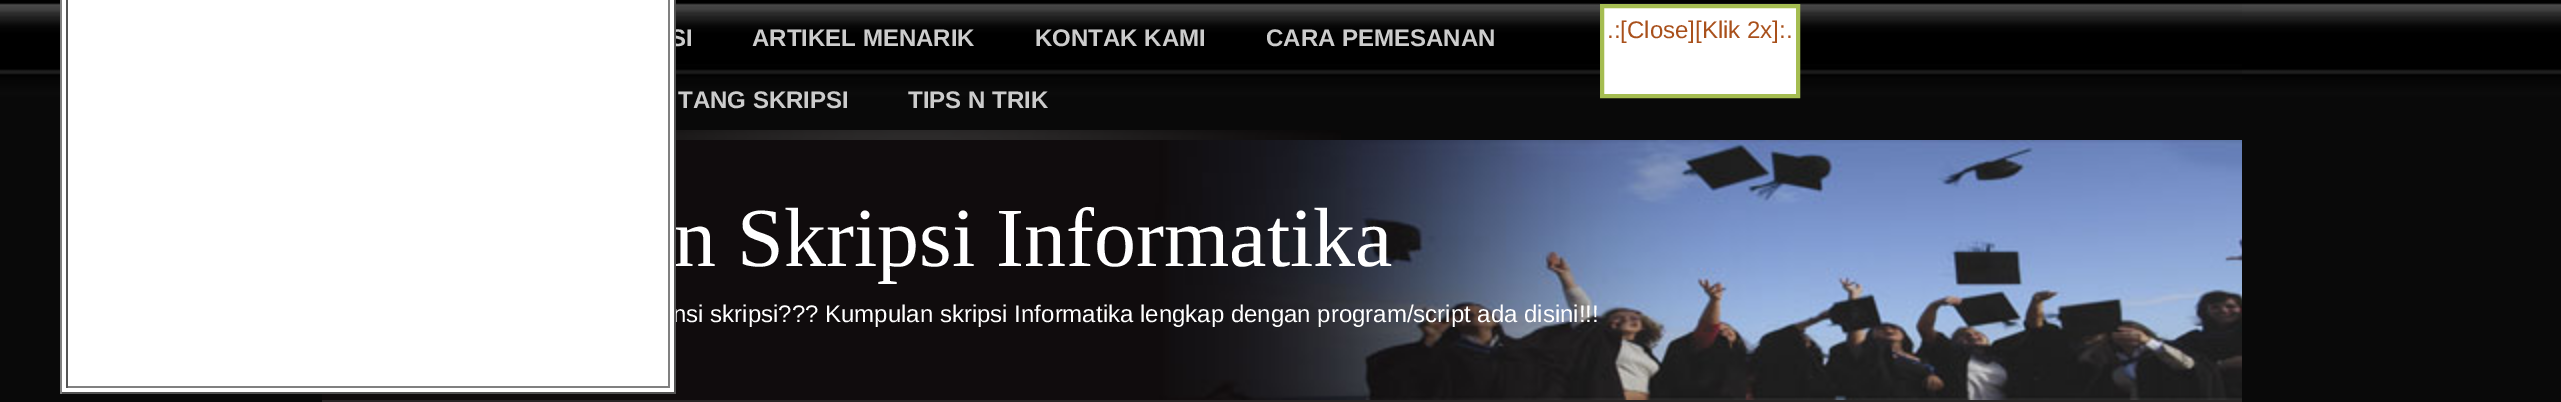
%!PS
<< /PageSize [2561 402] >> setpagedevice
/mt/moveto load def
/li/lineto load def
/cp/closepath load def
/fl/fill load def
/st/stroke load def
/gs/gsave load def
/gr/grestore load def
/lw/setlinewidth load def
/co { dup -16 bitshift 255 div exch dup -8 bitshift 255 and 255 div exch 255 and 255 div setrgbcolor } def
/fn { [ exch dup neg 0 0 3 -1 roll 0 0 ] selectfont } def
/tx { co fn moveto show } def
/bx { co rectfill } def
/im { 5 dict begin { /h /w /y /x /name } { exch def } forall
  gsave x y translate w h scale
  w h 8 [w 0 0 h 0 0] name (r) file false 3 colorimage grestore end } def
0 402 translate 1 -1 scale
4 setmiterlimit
0 0 2561 402 16#FFFFFF bx
(media/1.raw) 0 0 2561 402 im
(media/2.raw) 676 3 1566 77 im
1602 6 mt 1798 6 li 1798 96 li 1602 96 li cp gs fl gr
16#A5BD51 co
4 lw
st
322 400 1920 2 16#292525 bx
(media/3.raw) 676 130 665 10 im
(media/4.raw) 322 140 1920 260 im
(SI) 670 46 /LiberationSans-Bold 24 16#CCCCCC tx
(ARTIKEL MENARIK) 752 46 /LiberationSans-Bold 24 16#CCCCCC tx
(KONTAK KAMI) 1035 46 /LiberationSans-Bold 24 16#CCCCCC tx
(CARA PEMESANAN) 1266 46 /LiberationSans-Bold 24 16#CCCCCC tx
(TANG SKRIPSI) 678 108 /LiberationSans-Bold 24 16#CCCCCC tx
(TIPS N TRIK) 908 108 /LiberationSans-Bold 24 16#CCCCCC tx
62 0 612 392 16#FFFFFF bx
668 0 2 388 16#808080 bx
66 386 604 2 16#808080 bx
66 0 2 388 16#555555 bx
(.:[Close][Klik 2x]:.) 1607 38 /LiberationSans-Regular 24 16#A9501B tx
(n Skripsi Informatika) 674 266 /LiberationSerif-Regular 84 16#FFFFFF tx
(nsi skripsi??? Kumpulan skripsi Informatika lengkap dengan program/script ada disini!!!) 673 322 /LiberationSans-Regular 24 16#FFFFFF tx
674 0 2 394 16#555555 bx
60 392 616 2 16#555555 bx
60 0 2 394 16#808080 bx
showpage
